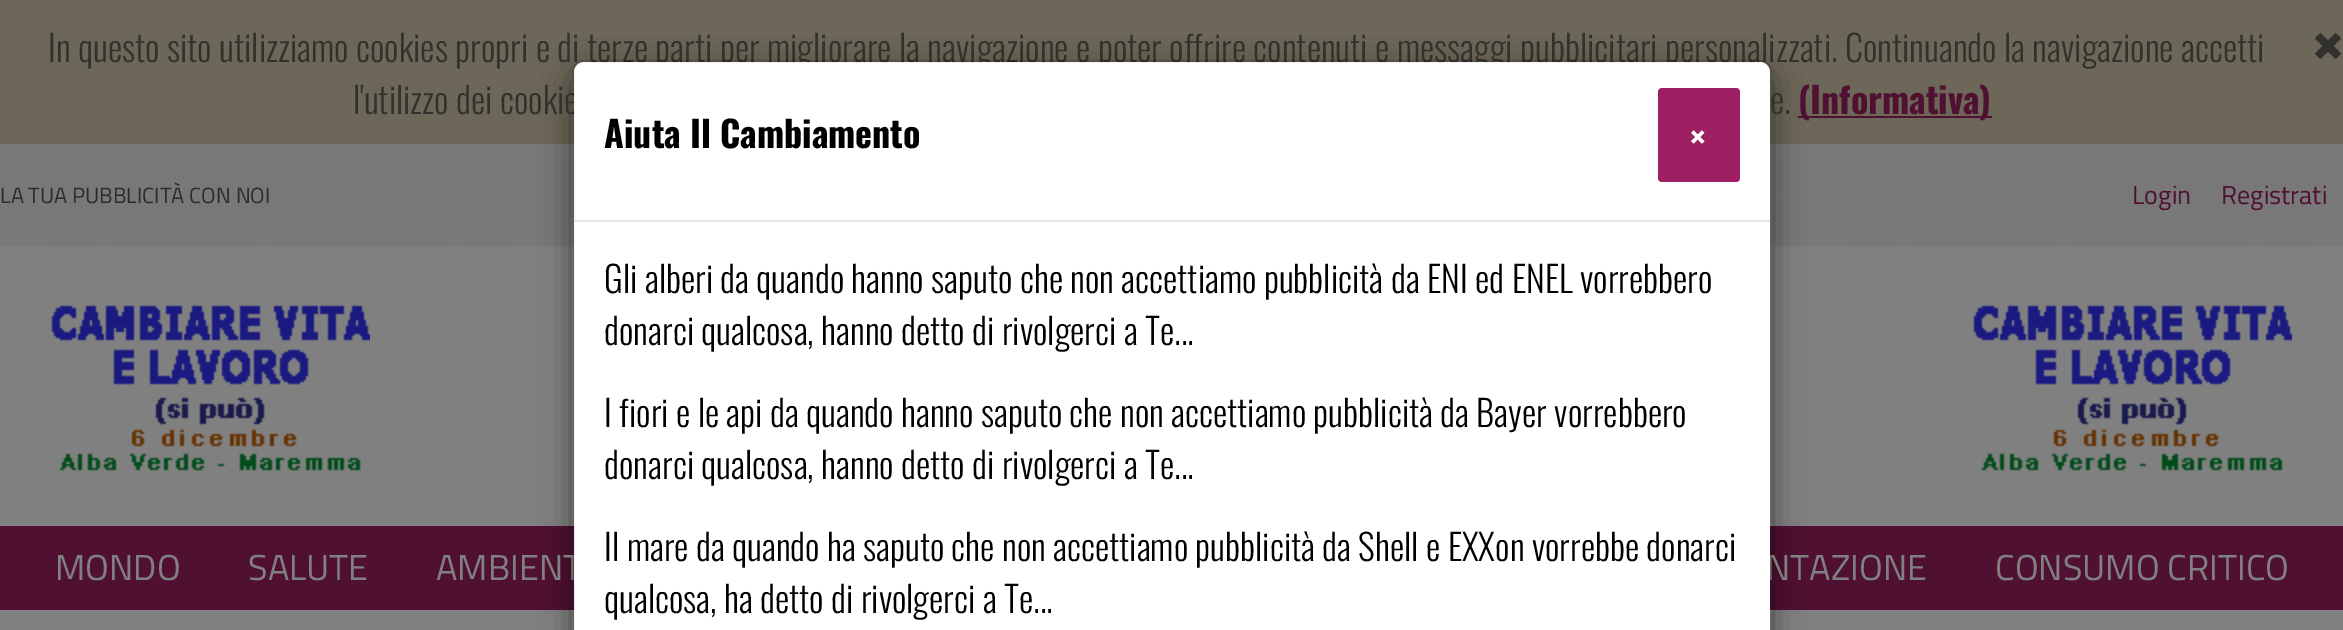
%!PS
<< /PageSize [2343 630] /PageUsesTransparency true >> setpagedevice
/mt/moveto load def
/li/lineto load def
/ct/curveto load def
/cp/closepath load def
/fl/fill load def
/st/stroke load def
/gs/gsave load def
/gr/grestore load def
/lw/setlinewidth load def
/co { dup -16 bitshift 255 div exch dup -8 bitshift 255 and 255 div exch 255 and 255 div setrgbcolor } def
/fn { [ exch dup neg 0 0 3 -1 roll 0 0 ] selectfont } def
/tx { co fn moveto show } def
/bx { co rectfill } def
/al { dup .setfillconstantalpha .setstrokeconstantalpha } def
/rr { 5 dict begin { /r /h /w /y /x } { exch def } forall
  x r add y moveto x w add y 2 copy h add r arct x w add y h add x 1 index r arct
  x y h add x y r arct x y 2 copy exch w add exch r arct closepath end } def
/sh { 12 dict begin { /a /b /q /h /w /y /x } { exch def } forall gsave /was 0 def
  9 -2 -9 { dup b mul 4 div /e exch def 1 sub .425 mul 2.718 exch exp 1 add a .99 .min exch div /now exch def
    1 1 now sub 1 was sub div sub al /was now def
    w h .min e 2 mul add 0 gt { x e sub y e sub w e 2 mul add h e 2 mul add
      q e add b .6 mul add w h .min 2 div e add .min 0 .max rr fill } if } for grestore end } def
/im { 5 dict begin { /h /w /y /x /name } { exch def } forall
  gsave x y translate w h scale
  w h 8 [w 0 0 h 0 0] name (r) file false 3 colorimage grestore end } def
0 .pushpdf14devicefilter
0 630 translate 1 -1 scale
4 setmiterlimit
0 0 2343 630 16#FFFFFF bx
(media/1.raw) 0 144 2343 102 im
0 0 2343 144 16#6C6758 bx
1798 116 194 2 16#501032 bx
(media/2.raw) 2315 33 26 26 im
0 246 2343 384 16#808080 bx
0 526 2343 84 16#501032 bx
gs
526 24 mt 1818 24 li 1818 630 li 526 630 li cp 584 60 mt 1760 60 li 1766.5 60 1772 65.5 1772 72 ct 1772 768 li 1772 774.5 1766.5 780 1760 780 ct 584 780 li 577.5 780 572 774.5 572 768 ct 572 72 li 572 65.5 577.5 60 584 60 ct cp eoclip newpath
16#000000 co
572 70 1200 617 12 15 .5 sh
gr
(media/3.raw) 51 305 319 166 im
(media/3.raw) 1973 305 319 166 im
(In questo sito utilizziamo cookies propri e di terze parti per migliorare la navigazione e poter offrire contenuti e messaggi pubblicitari personalizzati. Continuando la navigazione accetti) 48 62 /Oswald-Light 36 16#32312C tx
(l'utilizzo dei cookie) 353 114 /Oswald-Light 36 16#32312C tx
(e.) 1770 114 /Oswald-Light 36 16#32312C tx
(\(Informativa\)) 1798 114 /Oswald-Bold 36 16#501032 tx
(LA TUA PUBBLICITÀ CON NOI) 0 203 /TitilliumWeb-Regular 22 16#2C2C2D tx
(Login) 2132 204 /TitilliumWeb-Regular 26 16#501032 tx
(Registrati) 2221 204 /TitilliumWeb-Regular 26 16#501032 tx
(MONDO) 55 580 /TitilliumWeb-Regular 36 16#808080 tx
(SALUTE) 248 580 /TitilliumWeb-Regular 36 16#808080 tx
(AMBIENT) 436 580 /TitilliumWeb-Regular 36 16#808080 tx
(NTAZIONE) 1766 580 /TitilliumWeb-Regular 36 16#808080 tx
16#FFFFFF co
584 62 mt 1760 62 li 1765.5 62 1770 66.5 1770 72 ct 1770 630 li 574 630 li 574 72 li 574 66.5 578.5 62 584 62 ct cp fl
0.2 al
16#000000 co
2 lw
573 61 1198 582 11 rr st
1 al
(qualcosa, ha detto di rivolgerci a Te...) 604 613 /Oswald-Light 36 16#000000 tx
(Il mare da quando ha saputo che non accettiamo pubblicità da Shell e EXXon vorrebbe donarci) 604 561 /Oswald-Light 36 16#000000 tx
(donarci qualcosa, hanno detto di rivolgerci a Te...) 604 479 /Oswald-Light 36 16#000000 tx
(I fiori e le api da quando hanno saputo che non accettiamo pubblicità da Bayer vorrebbero) 604 427 /Oswald-Light 36 16#000000 tx
(donarci qualcosa, hanno detto di rivolgerci a Te...) 604 345 /Oswald-Light 36 16#000000 tx
(Gli alberi da quando hanno saputo che non accettiamo pubblicità da ENI ed ENEL vorrebbero) 604 293 /Oswald-Light 36 16#000000 tx
(Aiuta Il Cambiamento) 604 148 /Oswald-Bold 36 16#000000 tx
16#9F1F63 co
1658 88 82 94 4 rr fl
16#FFFFFF co
1689 152 mt 2 0 (×) ashow
574 220 1196 2 16#E5E5E5 bx
(CONSUMO CRITICO) 1995 580 /TitilliumWeb-Regular 36 16#808080 tx
.poppdf14devicefilter showpage
